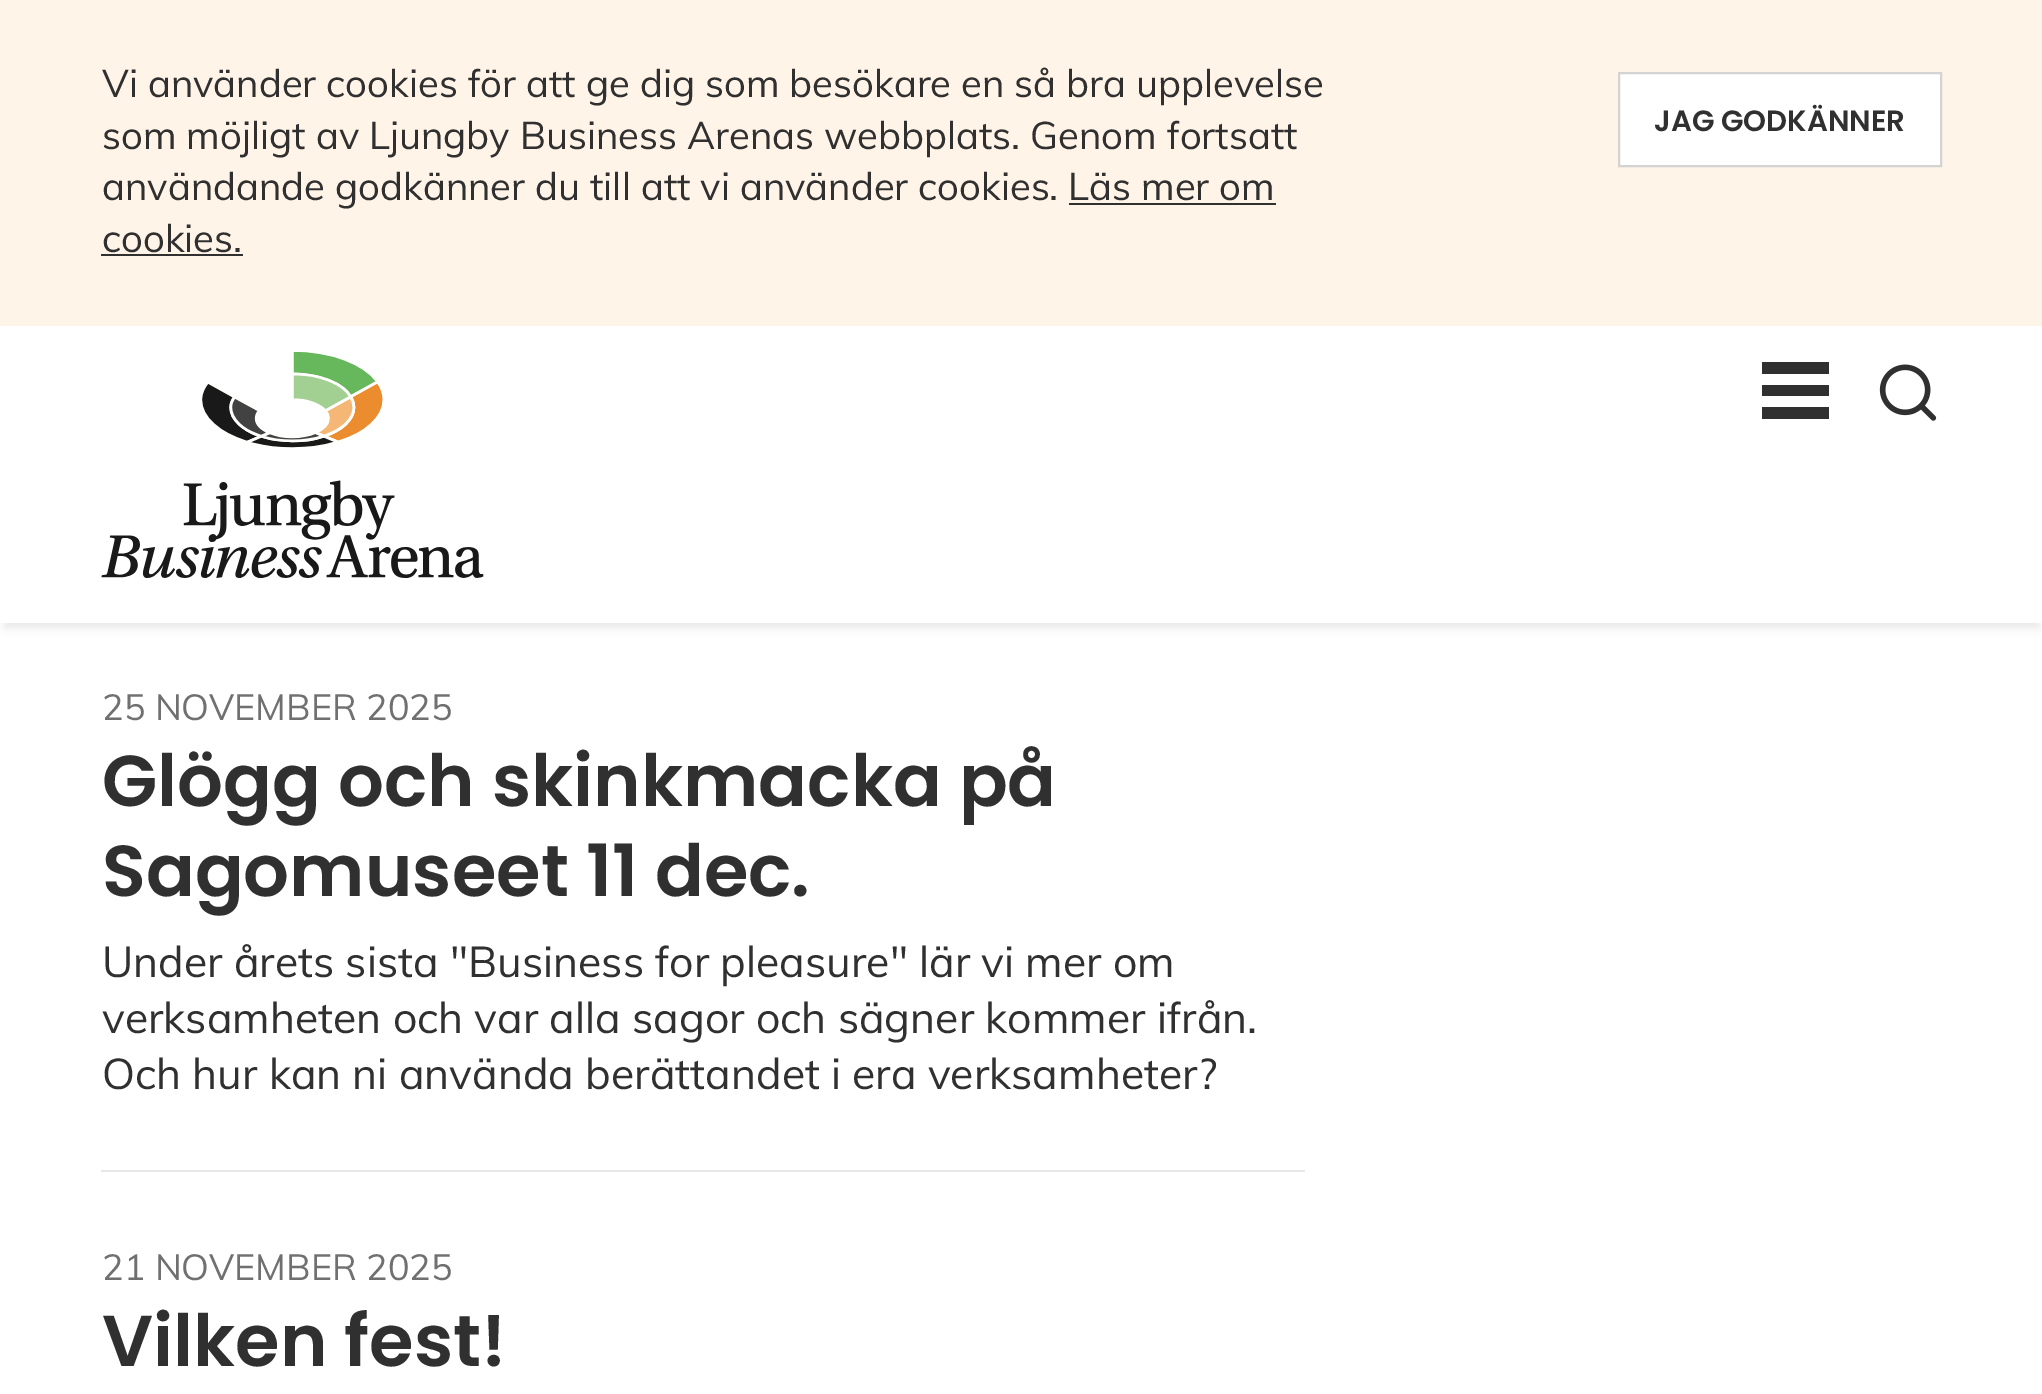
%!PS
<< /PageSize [2042 1394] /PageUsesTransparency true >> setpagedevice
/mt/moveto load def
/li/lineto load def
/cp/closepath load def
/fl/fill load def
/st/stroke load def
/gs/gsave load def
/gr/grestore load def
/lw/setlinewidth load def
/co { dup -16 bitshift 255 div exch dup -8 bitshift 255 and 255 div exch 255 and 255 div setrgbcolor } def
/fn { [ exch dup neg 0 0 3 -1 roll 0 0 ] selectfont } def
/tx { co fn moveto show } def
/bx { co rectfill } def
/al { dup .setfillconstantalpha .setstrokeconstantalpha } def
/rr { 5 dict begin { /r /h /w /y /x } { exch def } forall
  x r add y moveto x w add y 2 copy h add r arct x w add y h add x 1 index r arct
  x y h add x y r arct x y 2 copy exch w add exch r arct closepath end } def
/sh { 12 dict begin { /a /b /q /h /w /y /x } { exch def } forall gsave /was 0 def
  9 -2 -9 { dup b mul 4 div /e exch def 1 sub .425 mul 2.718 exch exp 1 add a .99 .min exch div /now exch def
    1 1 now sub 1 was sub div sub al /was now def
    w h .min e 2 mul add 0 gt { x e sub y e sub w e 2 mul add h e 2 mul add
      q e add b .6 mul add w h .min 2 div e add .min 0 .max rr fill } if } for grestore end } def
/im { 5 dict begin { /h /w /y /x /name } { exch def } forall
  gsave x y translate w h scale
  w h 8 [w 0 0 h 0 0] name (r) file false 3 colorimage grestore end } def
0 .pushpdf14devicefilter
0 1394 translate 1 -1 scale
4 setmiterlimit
0 0 2042 1394 16#FFFFFF bx
0 0 2042 326 16#FFF4E7 bx
1069 203 207 2 16#303030 bx
101 254 142 2 16#303030 bx
16#FFFFFF co
1619 73 mt 1941 73 li 1941 166 li 1619 166 li cp gs fl gr
16#D3D3D3 co
2 lw
st
gs
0 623 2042 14 rectclip
16#E8E8E8 co
5 340 2034 288 0 4.5 1 sh
gr
(media/1.raw) 101 352 383 226 im
1762 362 67 12 16#303030 bx
1762 385 67 11 16#303030 bx
1762 407 67 12 16#303030 bx
(media/2.raw) 1879 364 58 57 im
101 1170 1204 2 16#E8E8E8 bx
(Vi använder cookies för att ge dig som besökare en så bra upplevelse) 102 97 /Muli-Regular 38.25 16#303030 tx
(som möjligt av Ljungby Business Arenas webbplats. Genom fortsatt) 102 149 /Muli-Regular 38.25 16#303030 tx
(användande godkänner du till att vi använder cookies. Läs mer om) 102 200 /Muli-Regular 38.25 16#303030 tx
(cookies.) 102 252 /Muli-Regular 38.25 16#303030 tx
(JAG GODKÄNNER) 1654 131 /Poppins-SemiBold 29.25 16#303030 tx
(25 NOVEMBER 2025) 102 720 /Muli-Regular 36 16#707070 tx
(Glögg och skinkmacka på) 102 806 /Poppins-SemiBold 72 16#303030 tx
(Sagomuseet 11 dec.) 102 896 /Poppins-SemiBold 72 16#303030 tx
(Under årets sista "Business for pleasure" lär vi mer om) 102 977 /Muli-Regular 42.75 16#303030 tx
(verksamheten och var alla sagor och sägner kommer ifrån.) 102 1033 /Muli-Regular 42.75 16#303030 tx
(Och hur kan ni använda berättandet i era verksamheter?) 102 1089 /Muli-Regular 42.75 16#303030 tx
(21 NOVEMBER 2025) 102 1280 /Muli-Regular 36 16#707070 tx
(Vilken fest!) 102 1366 /Poppins-SemiBold 72 16#303030 tx
.poppdf14devicefilter showpage
